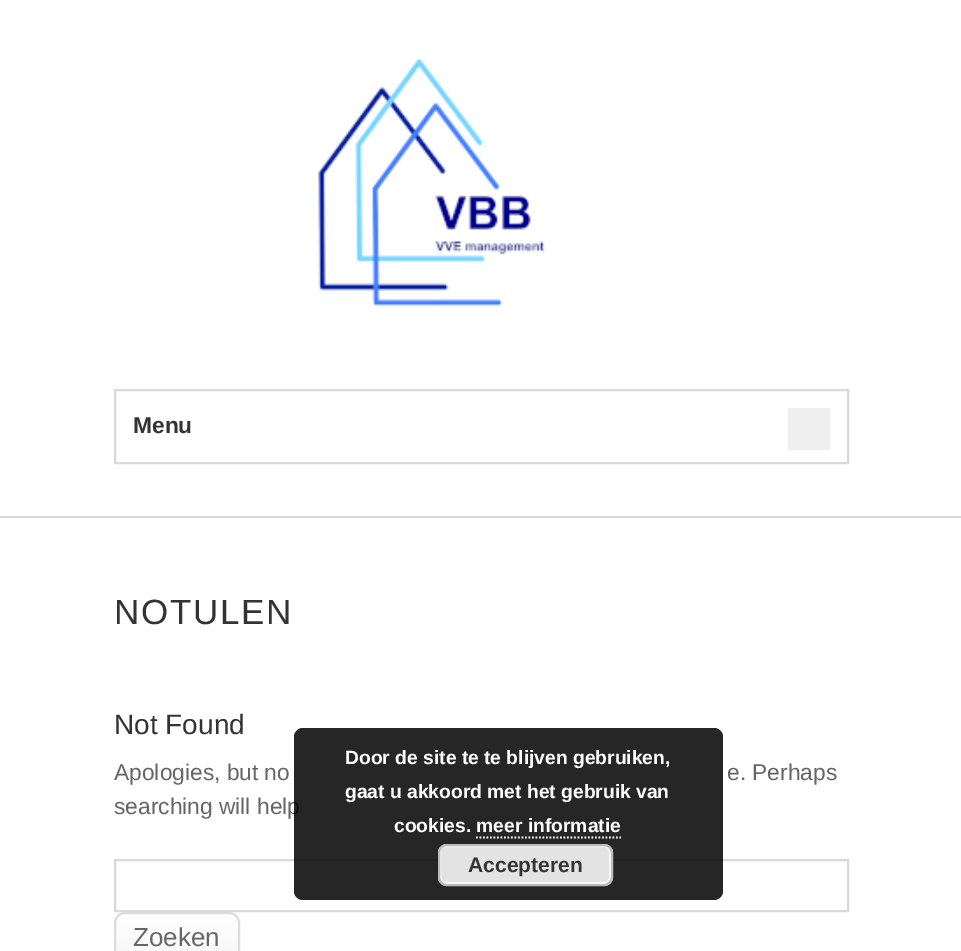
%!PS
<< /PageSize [961 951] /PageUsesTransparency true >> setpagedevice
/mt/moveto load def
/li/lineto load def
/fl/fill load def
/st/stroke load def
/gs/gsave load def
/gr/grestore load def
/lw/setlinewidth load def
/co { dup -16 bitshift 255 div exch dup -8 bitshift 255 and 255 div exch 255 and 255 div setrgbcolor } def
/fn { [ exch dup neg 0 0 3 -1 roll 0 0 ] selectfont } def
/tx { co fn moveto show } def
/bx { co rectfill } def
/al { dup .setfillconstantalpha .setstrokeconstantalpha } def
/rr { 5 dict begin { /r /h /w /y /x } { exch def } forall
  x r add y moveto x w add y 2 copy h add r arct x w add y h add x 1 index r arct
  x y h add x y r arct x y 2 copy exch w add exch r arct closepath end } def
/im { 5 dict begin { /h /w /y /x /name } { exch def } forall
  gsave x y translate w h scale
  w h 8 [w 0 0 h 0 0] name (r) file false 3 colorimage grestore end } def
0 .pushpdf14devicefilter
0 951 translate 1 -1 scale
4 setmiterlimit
0 0 961 951 16#FFFFFF bx
(media/1.raw) 318 59 227 248 im
0 516 961 2 16#D9D9D9 bx
2 lw
115 390 733 73 rectstroke
788 408 42 42 16#EFEFEF bx
16#D9D9D9 co
115 860 733 51 rectstroke
gs 116 914 122 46 9 rr clip newpath
<< /ShadingType 2 /ColorSpace /DeviceRGB /Coords [116 914 116 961] /Extend [true true] /Function << /FunctionType 3 /Domain [0 1] /Functions [<< /FunctionType 2 /Domain [0 1] /C0 [1 1 1] /C1 [1 1 1] /N 1 >> << /FunctionType 2 /Domain [0 1] /C0 [1 1 1] /C1 [.965 .965 .965] /N 1 >>] /Bounds [.05] /Encode [0 1 0 1] >> >> shfill gr
16#DCDCDC co
115 913 124 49 10 rr st
(Menu) 133 433 /LiberationSans-Bold 22.75 16#333333 tx
/LiberationSans-Regular 35 fn
114 624 mt 1.75 0 (NOTULEN) ashow
(Not Found) 114 734 /LiberationSans-Regular 28 16#333333 tx
(Apologies, but no) 114 780 /LiberationSans-Regular 22.75 16#666666 tx
(e. Perhaps) 727 780 /LiberationSans-Regular 22.75 16#666666 tx
(searching will help) 114 814 /LiberationSans-Regular 22.75 16#666666 tx
(Zoeken) 133 946 /LiberationSans-Regular 26 16#666666 tx
0.85 al
16#000000 co
294 728 429 172 9 rr fl
1 al
(Door de site te te blijven gebruiken,) 345 764 /LiberationSans-Bold 19.25 16#FFFFFF tx
(gaat u akkoord met het gebruik van) 345 798 /LiberationSans-Bold 19.25 16#FFFFFF tx
(cookies. meer informatie) 394 832 /LiberationSans-Bold 19.25 16#FFFFFF tx
1.8 lw
[1.75 1.75] 0 setdash
476 837.5 mt 621 837.5 li st
16#E3E3E3 co
438 844 175 42 9 rr fl
16#F6F6F6 co
2 lw
[] 0 setdash
440 846 170 37 6 rr st
16#BBBBBB co
439 845 173 40 8 rr st
(Accepteren) 468 872 /LiberationSans-Bold 21 16#333333 tx
.poppdf14devicefilter showpage
